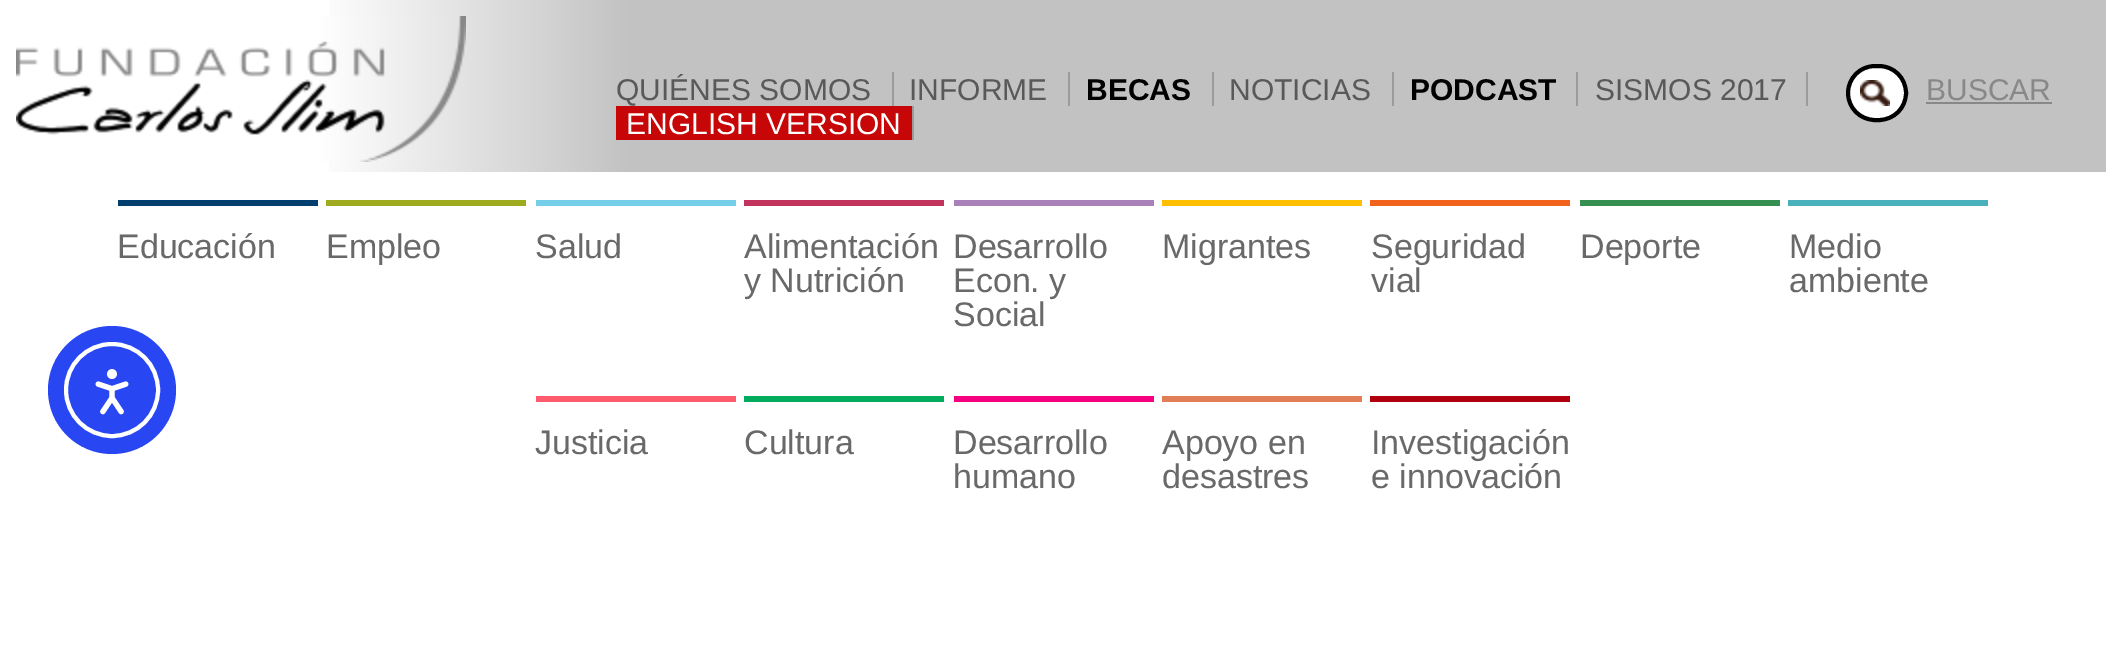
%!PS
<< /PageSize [2106 652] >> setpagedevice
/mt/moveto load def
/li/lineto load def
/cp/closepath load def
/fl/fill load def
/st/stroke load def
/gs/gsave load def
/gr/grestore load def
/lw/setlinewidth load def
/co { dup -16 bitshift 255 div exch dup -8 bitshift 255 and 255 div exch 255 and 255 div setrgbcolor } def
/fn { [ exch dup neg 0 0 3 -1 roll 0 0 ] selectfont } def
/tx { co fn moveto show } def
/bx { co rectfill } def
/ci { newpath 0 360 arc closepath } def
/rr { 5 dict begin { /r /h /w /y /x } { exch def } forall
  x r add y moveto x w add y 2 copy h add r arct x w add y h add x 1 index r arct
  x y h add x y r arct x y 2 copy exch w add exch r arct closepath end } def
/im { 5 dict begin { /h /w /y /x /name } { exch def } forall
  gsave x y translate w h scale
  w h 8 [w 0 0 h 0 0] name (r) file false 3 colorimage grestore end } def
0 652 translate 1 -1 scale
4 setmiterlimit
0 0 2106 652 16#FFFFFF bx
16#2847F3 co
112 390 64 ci fl
16#FFFFFF co
4 lw
112 390 46 ci st
(media/1.raw) 95 369 34 46 im
gs 329 0 mt 2106 0 li 2106 172 li 329 172 li cp clip newpath
<< /ShadingType 2 /ColorSpace /DeviceRGB /Coords [0 86 2106 86] /Extend [true true] /Function << /FunctionType 3 /Domain [0 1] /Functions [<< /FunctionType 2 /Domain [0 1] /C0 [1 1 1] /C1 [1 1 1] /N 1 >> << /FunctionType 2 /Domain [0 1] /C0 [1 1 1] /C1 [.761 .761 .761] /N 1 >> << /FunctionType 2 /Domain [0 1] /C0 [.761 .761 .761] /C1 [.761 .761 .761] /N 1 >>] /Bounds [.15 .3] /Encode [0 1 0 1 0 1] >> >> shfill gr
(media/2.raw) 16 16 450 146 im
892 72 2 34 16#9B9B9B bx
1068 72 2 34 16#9B9B9B bx
1212 72 2 34 16#9B9B9B bx
1392 72 2 34 16#9B9B9B bx
1576 72 2 34 16#9B9B9B bx
1806 72 2 34 16#9B9B9B bx
616 106 296 34 16#C70707 bx
912 106 2 34 16#9B9B9B bx
16#FFFFFF co
1846 64 62 58 29 rr fl
(media/3.raw) 1860 80 30 26 im
16#000000 co
1848 66 58 54 27 rr st
1926 102 126 2 16#888888 bx
118 200 200 6 16#013F6E bx
326 200 200 6 16#9EAB1F bx
536 200 200 6 16#75CFE8 bx
744 200 200 6 16#C1325D bx
954 200 200 6 16#A881B8 bx
1162 200 200 6 16#FFBE00 bx
1370 200 200 6 16#F1621D bx
1580 200 200 6 16#358F51 bx
1788 200 200 6 16#4AB0BC bx
536 396 200 6 16#FF5B6C bx
744 396 200 6 16#00AB5D bx
954 396 200 6 16#F50081 bx
1162 396 200 6 16#E17E57 bx
1370 396 200 6 16#B1000D bx
(QUIÉNES SOMOS) 616 100 /LiberationSans-Regular 30 16#5A5858 tx
(INFORME) 909 100 /LiberationSans-Regular 30 16#5A5858 tx
(BECAS) 1086 100 /LiberationSans-Bold 30 16#000000 tx
(NOTICIAS) 1229 100 /LiberationSans-Regular 30 16#5A5858 tx
(PODCAST) 1410 100 /LiberationSans-Bold 30 16#000000 tx
(SISMOS 2017) 1595 100 /LiberationSans-Regular 30 16#5A5858 tx
(ENGLISH VERSION) 626 134 /LiberationSans-Regular 30 16#FFFFFF tx
(BUSCAR) 1926 100 /LiberationSans-Regular 30 16#888888 tx
(Educación) 117 258 /LiberationSans-Regular 34 16#696969 tx
(Empleo) 326 258 /LiberationSans-Regular 34 16#696969 tx
(Salud) 535 258 /LiberationSans-Regular 34 16#696969 tx
(Alimentación) 744 258 /LiberationSans-Regular 34 16#696969 tx
(y Nutrición) 744 292 /LiberationSans-Regular 34 16#696969 tx
(Desarrollo) 953 258 /LiberationSans-Regular 34 16#696969 tx
(Econ. y) 953 292 /LiberationSans-Regular 34 16#696969 tx
(Social) 953 326 /LiberationSans-Regular 34 16#696969 tx
(Migrantes) 1162 258 /LiberationSans-Regular 34 16#696969 tx
(Seguridad) 1371 258 /LiberationSans-Regular 34 16#696969 tx
(vial) 1371 292 /LiberationSans-Regular 34 16#696969 tx
(Deporte) 1580 258 /LiberationSans-Regular 34 16#696969 tx
(Medio) 1789 258 /LiberationSans-Regular 34 16#696969 tx
(ambiente) 1789 292 /LiberationSans-Regular 34 16#696969 tx
(Justicia) 535 454 /LiberationSans-Regular 34 16#696969 tx
(Cultura) 744 454 /LiberationSans-Regular 34 16#696969 tx
(Desarrollo) 953 454 /LiberationSans-Regular 34 16#696969 tx
(humano) 953 488 /LiberationSans-Regular 34 16#696969 tx
(Apoyo en) 1162 454 /LiberationSans-Regular 34 16#696969 tx
(desastres) 1162 488 /LiberationSans-Regular 34 16#696969 tx
(Investigación) 1371 454 /LiberationSans-Regular 34 16#696969 tx
(e innovación) 1371 488 /LiberationSans-Regular 34 16#696969 tx
showpage
